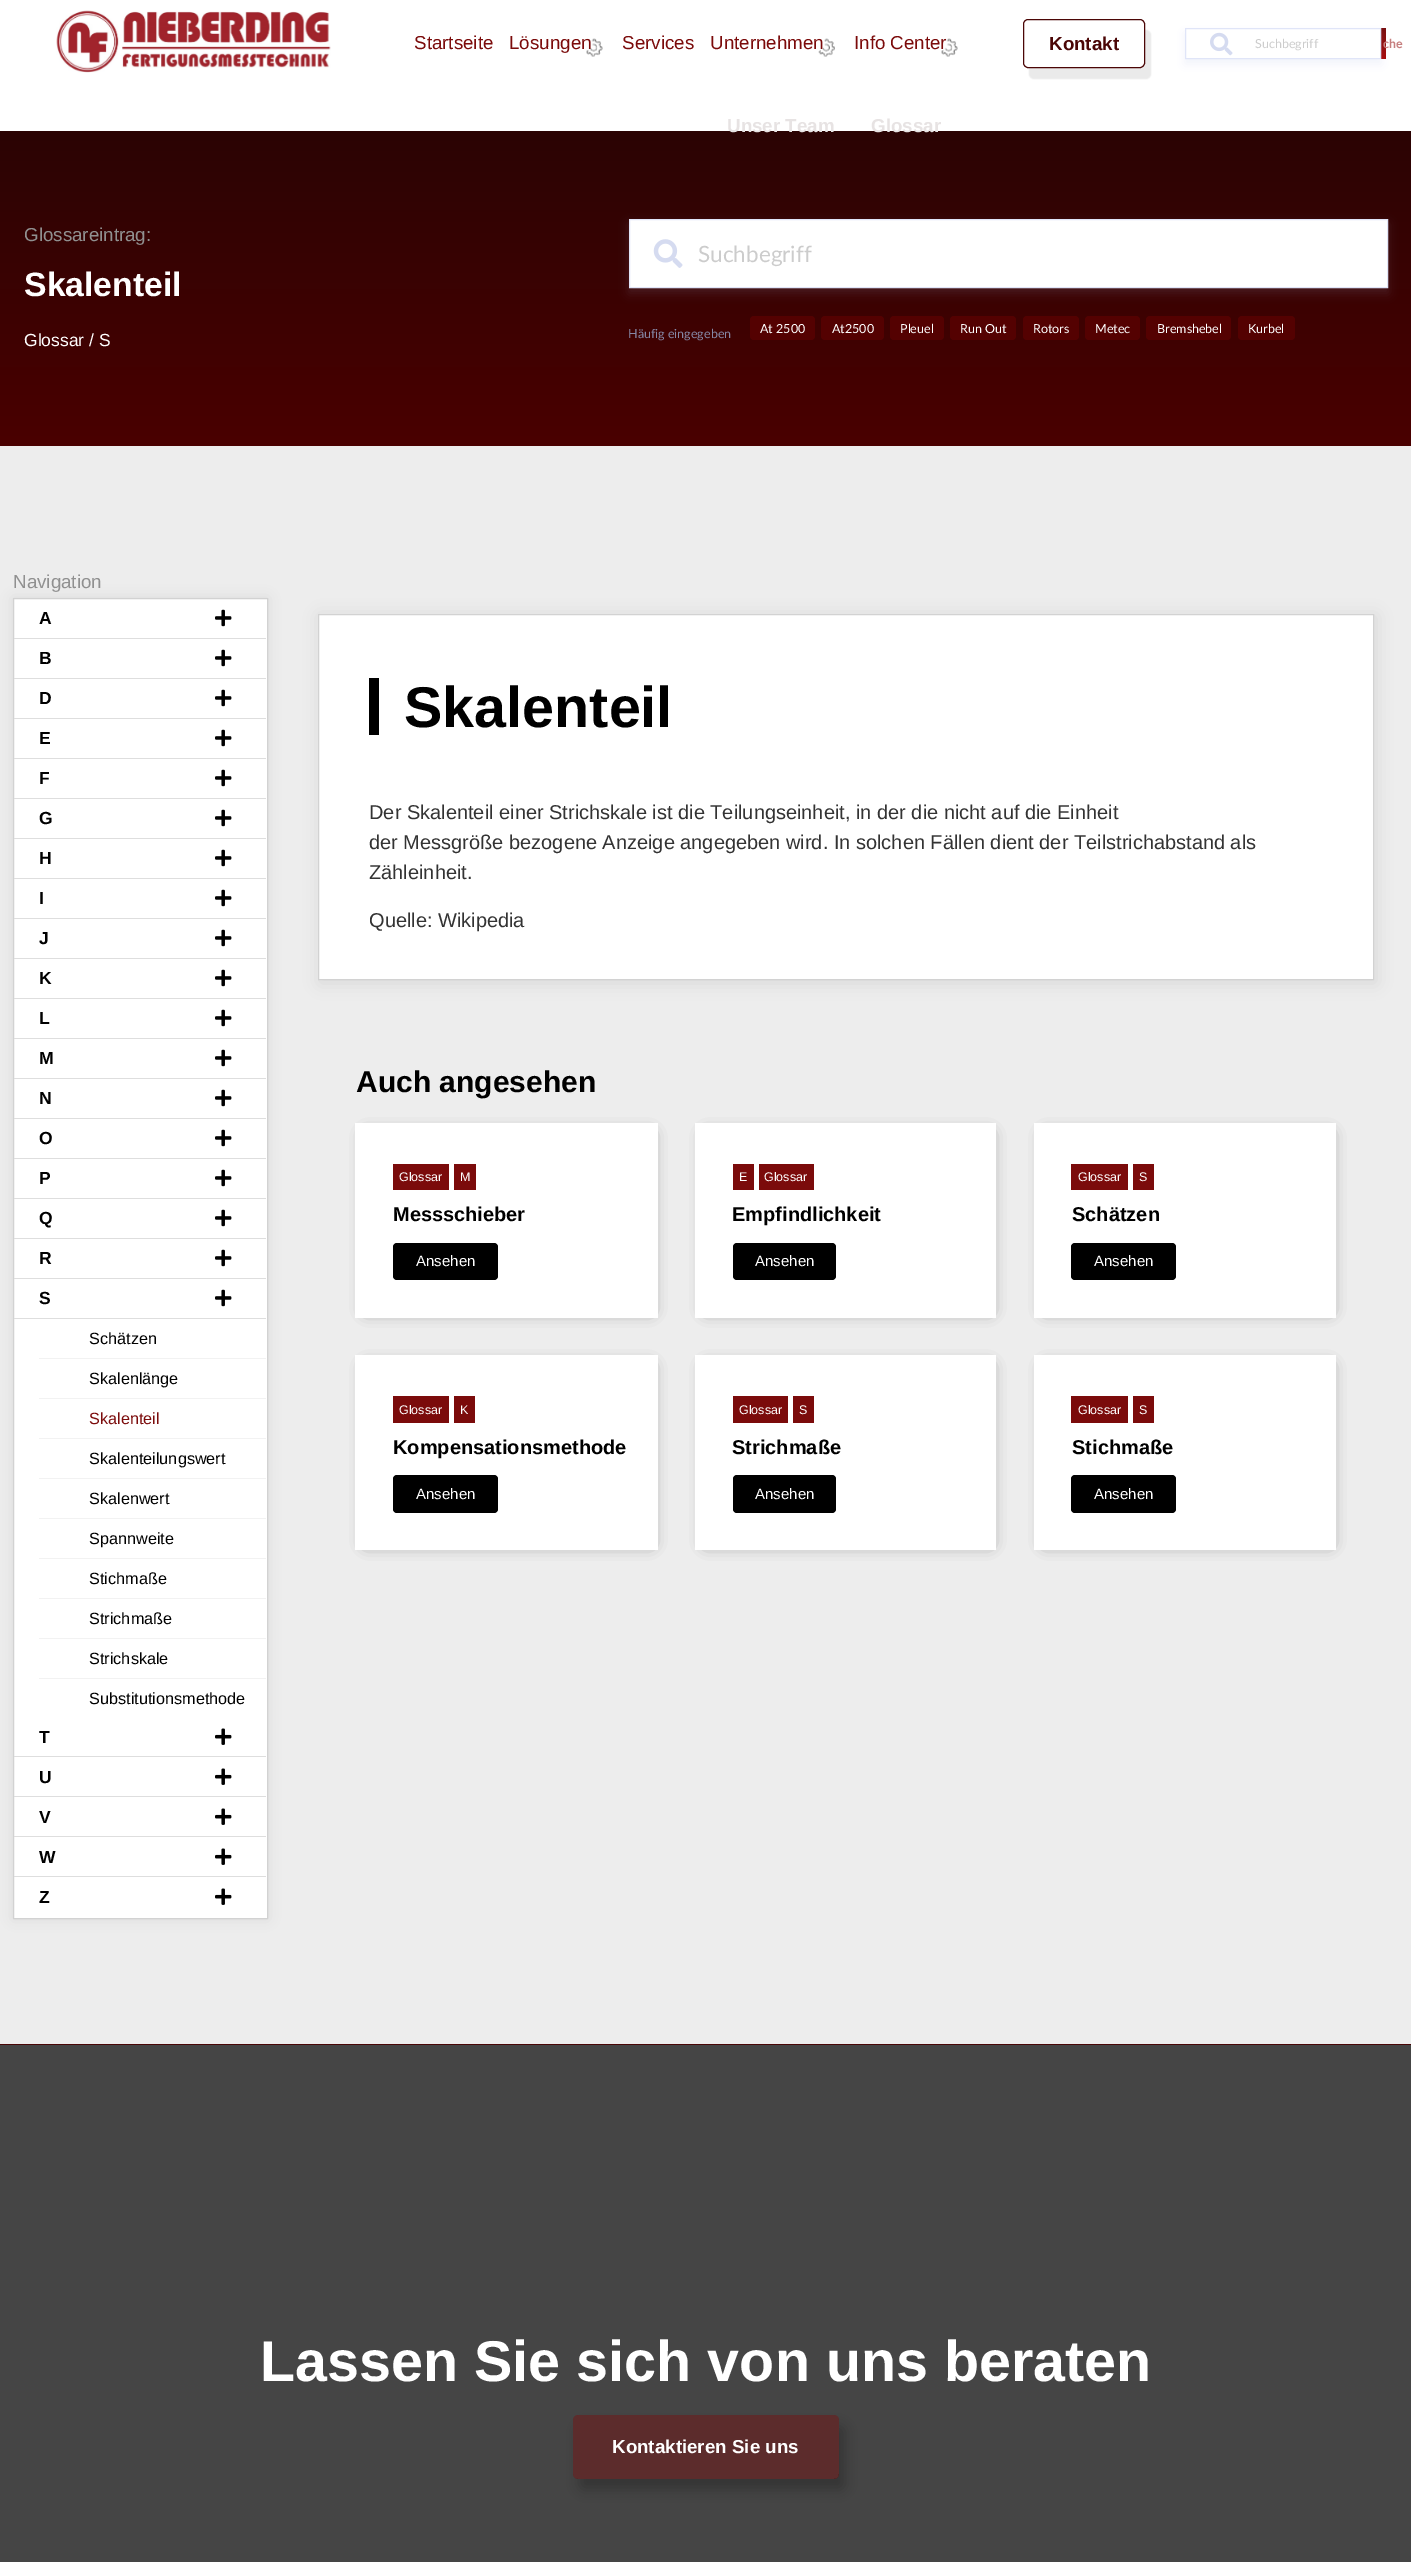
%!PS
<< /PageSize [1411 2562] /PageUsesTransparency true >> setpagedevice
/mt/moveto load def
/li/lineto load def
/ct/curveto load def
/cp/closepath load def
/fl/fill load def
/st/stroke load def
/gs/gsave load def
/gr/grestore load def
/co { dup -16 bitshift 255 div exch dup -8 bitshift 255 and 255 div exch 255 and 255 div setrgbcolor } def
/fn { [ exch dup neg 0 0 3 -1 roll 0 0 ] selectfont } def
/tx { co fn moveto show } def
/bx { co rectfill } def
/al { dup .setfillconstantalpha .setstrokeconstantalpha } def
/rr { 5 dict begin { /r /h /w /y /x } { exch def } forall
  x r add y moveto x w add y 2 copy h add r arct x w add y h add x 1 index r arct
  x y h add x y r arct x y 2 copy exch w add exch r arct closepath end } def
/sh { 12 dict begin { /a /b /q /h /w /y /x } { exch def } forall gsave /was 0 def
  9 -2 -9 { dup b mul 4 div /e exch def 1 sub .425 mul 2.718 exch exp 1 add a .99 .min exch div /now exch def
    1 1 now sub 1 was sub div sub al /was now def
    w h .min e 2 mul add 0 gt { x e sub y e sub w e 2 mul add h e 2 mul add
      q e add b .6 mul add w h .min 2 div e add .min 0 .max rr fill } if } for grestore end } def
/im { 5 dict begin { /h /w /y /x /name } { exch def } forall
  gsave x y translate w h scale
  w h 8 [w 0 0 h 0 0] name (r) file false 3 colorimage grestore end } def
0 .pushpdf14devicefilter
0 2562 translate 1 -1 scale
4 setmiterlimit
0 0 1411 2562 16#FFFFFF bx
(media/1.raw) 56 10 275 63 im
gs
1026 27 mt 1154 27 li 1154 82 li 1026 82 li cp 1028 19 mt 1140 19 li 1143 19 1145 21 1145 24 ct 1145 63 li 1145 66 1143 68 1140 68 ct 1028 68 li 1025 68 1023 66 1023 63 ct 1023 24 li 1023 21 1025 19 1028 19 ct cp eoclip newpath
16#000000 co
1029 30 122 49 5 .5 .08 sh
gr
16#4B0606 co
1023.5 19.5 121 48 4.5 rr st
gs 1381 28 mt 1386 28 li 1386 59 li 1381 59 li cp clip newpath
<< /ShadingType 2 /ColorSpace /DeviceRGB /Coords [1378 28 1378 59] /Extend [true true] /Function << /FunctionType 2 /Domain [0 1] /C0 [.471 .051 .051] /C1 [.659 .024 .024] /N 1 >> >> shfill gr
16#A5AED5 co
1185 33 196 31 0 5 .15 sh
16#FFFFFF co
1185.5 28.5 mt 1380.5 28.5 li 1380.5 58.5 li 1185.5 58.5 li cp gs fl gr
16#E0E5F8 co
st
(media/5.raw) 1210 32 23 24 im
gs 0 131 mt 1411 131 li 1411 446 li 0 446 li cp clip newpath
<< /ShadingType 2 /ColorSpace /DeviceRGB /Coords [706 131 706 446] /Extend [true true] /Function << /FunctionType 2 /Domain [0 1] /C0 [.169 .016 .016] /C1 [.29 0 0] /N 1 >> >> shfill gr
16#A5AED5 co
629 224 759 69 0 5 .15 sh
16#FFFFFF co
629.5 219.5 mt 1387.5 219.5 li 1387.5 287.5 li 629.5 287.5 li cp gs fl gr
16#E0E5F8 co
st
(media/6.raw) 653 239 30 29 im
16#540101 co
750 316 65 24 4 rr fl
821 316 63 24 4 rr fl
890 316 54 24 4 rr fl
950 316 66 24 4 rr fl
1023 316 56 24 4 rr fl
1085 316 55 24 4 rr fl
1146 316 85 24 4 rr fl
1238 316 57 24 4 rr fl
0 446 1411 1598 16#EDEDED bx
0 2044 1411 1 16#480606 bx
16#000000 co
13 598 255 1321 0 6 .07 sh
16#FFFFFF co
13.5 598.5 mt 267.5 598.5 li 267.5 1918.5 li 13.5 1918.5 li cp gs fl gr
16#D2D2D2 co
st
14 638 252 1 16#DEDEDE bx
(media/7.raw) 215 609 17 18 im
14 678 252 1 16#DEDEDE bx
(media/7.raw) 215 649 17 18 im
14 718 252 1 16#DEDEDE bx
(media/7.raw) 215 689 17 18 im
14 758 252 1 16#DEDEDE bx
(media/7.raw) 215 729 17 18 im
14 798 252 1 16#DEDEDE bx
(media/7.raw) 215 769 17 18 im
14 838 252 1 16#DEDEDE bx
(media/7.raw) 215 809 17 18 im
14 878 252 1 16#DEDEDE bx
(media/7.raw) 215 849 17 18 im
14 918 252 1 16#DEDEDE bx
(media/7.raw) 215 889 17 18 im
14 958 252 1 16#DEDEDE bx
(media/7.raw) 215 929 17 18 im
14 998 252 1 16#DEDEDE bx
(media/7.raw) 215 969 17 18 im
14 1038 252 1 16#DEDEDE bx
(media/7.raw) 215 1009 17 18 im
14 1078 252 1 16#DEDEDE bx
(media/7.raw) 215 1049 17 18 im
14 1118 252 1 16#DEDEDE bx
(media/7.raw) 215 1089 17 18 im
14 1158 252 1 16#DEDEDE bx
(media/7.raw) 215 1129 17 18 im
14 1198 252 1 16#DEDEDE bx
(media/7.raw) 215 1169 17 18 im
14 1238 252 1 16#DEDEDE bx
(media/7.raw) 215 1209 17 18 im
14 1278 252 1 16#DEDEDE bx
(media/7.raw) 215 1249 17 18 im
14 1318 252 1 16#DEDEDE bx
(media/7.raw) 215 1289 17 18 im
39 1358 227 1 16#F2F2F2 bx
39 1398 227 1 16#F2F2F2 bx
39 1438 227 1 16#F2F2F2 bx
39 1478 227 1 16#F2F2F2 bx
39 1518 227 1 16#F2F2F2 bx
39 1558 227 1 16#F2F2F2 bx
39 1598 227 1 16#F2F2F2 bx
39 1638 227 1 16#F2F2F2 bx
39 1678 227 1 16#F2F2F2 bx
14 1756 252 1 16#DEDEDE bx
(media/8.raw) 215 1728 17 17 im
14 1796 252 1 16#DEDEDE bx
(media/8.raw) 215 1768 17 17 im
14 1836 252 1 16#DEDEDE bx
(media/8.raw) 215 1808 17 17 im
14 1876 252 1 16#DEDEDE bx
(media/8.raw) 215 1848 17 17 im
(media/8.raw) 215 1888 17 17 im
16#000000 co
320 616 1056 367 0 8 .08 sh
16#FFFFFF co
318.5 614.5 mt 1373.5 614.5 li 1373.5 979.5 li 318.5 979.5 li cp gs fl gr
16#D2D2D2 co
st
369 678 10 57 16#000000 bx
366 1134 285 177 0 7.5 .5 sh
355 1123 303 195 16#FFFFFF bx
393 1164 56 26 16#7B0B0B bx
454 1164 22 26 16#7B0B0B bx
16#000000 co
393 1243 105 37 4 rr fl
706 1134 284 177 0 7.5 .5 sh
695 1123 301 195 16#FFFFFF bx
733 1164 21 26 16#7B0B0B bx
759 1164 55 26 16#7B0B0B bx
16#000000 co
733 1243 103 37 4 rr fl
1045 1134 285 177 0 7.5 .5 sh
1034 1123 302 195 16#FFFFFF bx
1071 1164 57 26 16#7B0B0B bx
1133 1164 21 26 16#7B0B0B bx
16#000000 co
1071 1243 105 37 4 rr fl
366 1366 285 178 0 7.5 .5 sh
355 1355 303 195 16#FFFFFF bx
393 1396 56 27 16#7B0B0B bx
454 1396 21 27 16#7B0B0B bx
16#000000 co
393 1475 105 38 4 rr fl
706 1366 284 178 0 7.5 .5 sh
695 1355 301 195 16#FFFFFF bx
733 1396 55 27 16#7B0B0B bx
793 1396 21 27 16#7B0B0B bx
16#000000 co
733 1475 103 38 4 rr fl
1045 1366 285 178 0 7.5 .5 sh
1034 1355 302 195 16#FFFFFF bx
1071 1396 57 27 16#7B0B0B bx
1133 1396 21 27 16#7B0B0B bx
16#000000 co
1071 1475 105 38 4 rr fl
0 2045 1411 517 16#454545 bx
gs
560 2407 mt 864 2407 li 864 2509 li 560 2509 li cp 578 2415 mt 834 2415 li 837 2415 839 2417 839 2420 ct 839 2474 li 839 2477 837 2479 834 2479 ct 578 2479 li 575 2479 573 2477 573 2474 ct 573 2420 li 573 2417 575 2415 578 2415 ct cp eoclip newpath
16#000000 co
579 2426 266 64 5 6 .24 sh
gr
0.43 al
16#7B0B0B co
573 2415 266 64 5 rr fl
1 al
(Startseite) 414 49 /LiberationSans-Regular 18.75 16#7B0B0B tx
(Lösungen) 509 49 /LiberationSans-Regular 18.75 16#7B0B0B tx
(media/2.raw) 586 38 17 19 im
(Services) 622 49 /LiberationSans-Regular 18.75 16#7B0B0B tx
(Unternehmen) 710 49 /LiberationSans-Regular 18.75 16#7B0B0B tx
(media/3.raw) 818 38 17 19 im
(Unser Team) 727 132 /LiberationSans-Bold 18.75 16#E7E3E3 tx
(Info Center) 854 49 /LiberationSans-Regular 18.75 16#7B0B0B tx
(media/4.raw) 941 38 17 19 im
(Glossar) 871 132 /LiberationSans-Bold 18.75 16#E7E3E3 tx
(Kontakt) 1049 50 /LiberationSans-Bold 18.75 16#4B0606 tx
(Suchbegriff) 1255 48 /Lato-Regular 12.5 16#CCCCCC tx
(che) 1383 48 /Lato-Bold 12.5 16#C67F7F tx
(Glossareintrag:) 24 241 /LiberationSans-Regular 18.75 16#909090 tx
(Skalenteil) 24 296 /LiberationSans-Bold 33.75 16#FFFFFF tx
(Glossar / S) 24 346 /LiberationSans-Regular 17.5 16#FFFFFF tx
(Suchbegriff) 698 262 /Lato-Regular 22.5 16#CCCCCC tx
(Häufig eingegeben) 628 338 /Lato-Regular 12.5 16#8588A6 tx
(At 2500) 760 333 /Lato-Regular 12.5 16#FFFFFF tx
(At2500) 832 333 /Lato-Regular 12.5 16#FFFFFF tx
(Pleuel) 900 333 /Lato-Regular 12.5 16#FFFFFF tx
(Run Out) 960 333 /Lato-Regular 12.5 16#FFFFFF tx
(Rotors) 1033 333 /Lato-Regular 12.5 16#FFFFFF tx
(Metec) 1095 333 /Lato-Regular 12.5 16#FFFFFF tx
(Bremshebel) 1157 333 /Lato-Regular 12.5 16#FFFFFF tx
(Kurbel) 1248 333 /Lato-Regular 12.5 16#FFFFFF tx
(Navigation) 13 588 /LiberationSans-Regular 18.75 16#909090 tx
(A) 39 624 /LiberationSans-Bold 17.5 16#000000 tx
(B) 39 664 /LiberationSans-Bold 17.5 16#000000 tx
(D) 39 704 /LiberationSans-Bold 17.5 16#000000 tx
(E) 39 744 /LiberationSans-Bold 17.5 16#000000 tx
(F) 39 784 /LiberationSans-Bold 17.5 16#000000 tx
(G) 39 824 /LiberationSans-Bold 17.5 16#000000 tx
(H) 39 864 /LiberationSans-Bold 17.5 16#000000 tx
(I) 39 904 /LiberationSans-Bold 17.5 16#000000 tx
(J) 39 944 /LiberationSans-Bold 17.5 16#000000 tx
(K) 39 984 /LiberationSans-Bold 17.5 16#000000 tx
(L) 39 1024 /LiberationSans-Bold 17.5 16#000000 tx
(M) 39 1064 /LiberationSans-Bold 17.5 16#000000 tx
(N) 39 1104 /LiberationSans-Bold 17.5 16#000000 tx
(O) 39 1144 /LiberationSans-Bold 17.5 16#000000 tx
(P) 39 1184 /LiberationSans-Bold 17.5 16#000000 tx
(Q) 39 1224 /LiberationSans-Bold 17.5 16#000000 tx
(R) 39 1264 /LiberationSans-Bold 17.5 16#000000 tx
(S) 39 1304 /LiberationSans-Bold 17.5 16#000000 tx
(Schätzen) 89 1344 /LiberationSans-Regular 16.25 16#000000 tx
(Skalenlänge) 89 1384 /LiberationSans-Regular 16.25 16#000000 tx
(Skalenteil) 89 1424 /LiberationSans-Regular 16.25 16#7B0B0B tx
(Skalenteilungswert) 89 1464 /LiberationSans-Regular 16.25 16#000000 tx
(Skalenwert) 89 1504 /LiberationSans-Regular 16.25 16#000000 tx
(Spannweite) 89 1544 /LiberationSans-Regular 16.25 16#000000 tx
(Stichmaße) 89 1584 /LiberationSans-Regular 16.25 16#000000 tx
(Strichmaße) 89 1624 /LiberationSans-Regular 16.25 16#000000 tx
(Strichskale) 89 1664 /LiberationSans-Regular 16.25 16#000000 tx
(Substitutionsmethode) 89 1704 /LiberationSans-Regular 16.25 16#000000 tx
(T) 39 1743 /LiberationSans-Bold 17.5 16#000000 tx
(U) 39 1783 /LiberationSans-Bold 17.5 16#000000 tx
(V) 39 1823 /LiberationSans-Bold 17.5 16#000000 tx
(W) 39 1863 /LiberationSans-Bold 17.5 16#000000 tx
(Z) 39 1903 /LiberationSans-Bold 17.5 16#000000 tx
(Skalenteil) 404 727 /LiberationSans-Bold 57.5 16#000000 tx
(Der Skalenteil einer Strichskale ist die Teilungseinheit, in der die nicht auf die Einheit) 369 819 /LiberationSans-Regular 20 16#333333 tx
(der Messgröße bezogene Anzeige angegeben wird. In solchen Fällen dient der Teilstrichabstand als) 369 849 /LiberationSans-Regular 20 16#333333 tx
(Zähleinheit.) 369 879 /LiberationSans-Regular 20 16#333333 tx
(Quelle: Wikipedia) 369 927 /LiberationSans-Regular 20 16#333333 tx
(Auch angesehen) 356 1092 /LiberationSans-Bold 30 16#000000 tx
(Glossar) 399 1181 /LiberationSans-Regular 12.5 16#FFFFFF tx
(M) 460 1181 /LiberationSans-Regular 12.5 16#FFFFFF tx
(Messschieber) 393 1221 /LiberationSans-Bold 20 16#000000 tx
(Ansehen) 416 1266 /LiberationSans-Regular 15 16#FFFFFF tx
(E) 739 1181 /LiberationSans-Regular 12.5 16#FFFFFF tx
(Glossar) 764 1181 /LiberationSans-Regular 12.5 16#FFFFFF tx
(Empfindlichkeit) 732 1221 /LiberationSans-Bold 20 16#000000 tx
(Ansehen) 755 1266 /LiberationSans-Regular 15 16#FFFFFF tx
(Glossar) 1078 1181 /LiberationSans-Regular 12.5 16#FFFFFF tx
(S) 1139 1181 /LiberationSans-Regular 12.5 16#FFFFFF tx
(Schätzen) 1072 1221 /LiberationSans-Bold 20 16#000000 tx
(Ansehen) 1094 1266 /LiberationSans-Regular 15 16#FFFFFF tx
(Glossar) 399 1414 /LiberationSans-Regular 12.5 16#FFFFFF tx
(K) 460 1414 /LiberationSans-Regular 12.5 16#FFFFFF tx
(Kompensationsmethode) 393 1454 /LiberationSans-Bold 20 16#000000 tx
(Ansehen) 416 1499 /LiberationSans-Regular 15 16#FFFFFF tx
(Glossar) 739 1414 /LiberationSans-Regular 12.5 16#FFFFFF tx
(S) 799 1414 /LiberationSans-Regular 12.5 16#FFFFFF tx
(Strichmaße) 732 1454 /LiberationSans-Bold 20 16#000000 tx
(Ansehen) 755 1499 /LiberationSans-Regular 15 16#FFFFFF tx
(Glossar) 1078 1414 /LiberationSans-Regular 12.5 16#FFFFFF tx
(S) 1139 1414 /LiberationSans-Regular 12.5 16#FFFFFF tx
(Stichmaße) 1072 1454 /LiberationSans-Bold 20 16#000000 tx
(Ansehen) 1094 1499 /LiberationSans-Regular 15 16#FFFFFF tx
(Lassen Sie sich von uns beraten) 260 2381 /LiberationSans-Bold 57.5 16#FFFFFF tx
(Kontaktieren Sie uns) 612 2453 /LiberationSans-Bold 18.75 16#FFFFFF tx
.poppdf14devicefilter showpage
